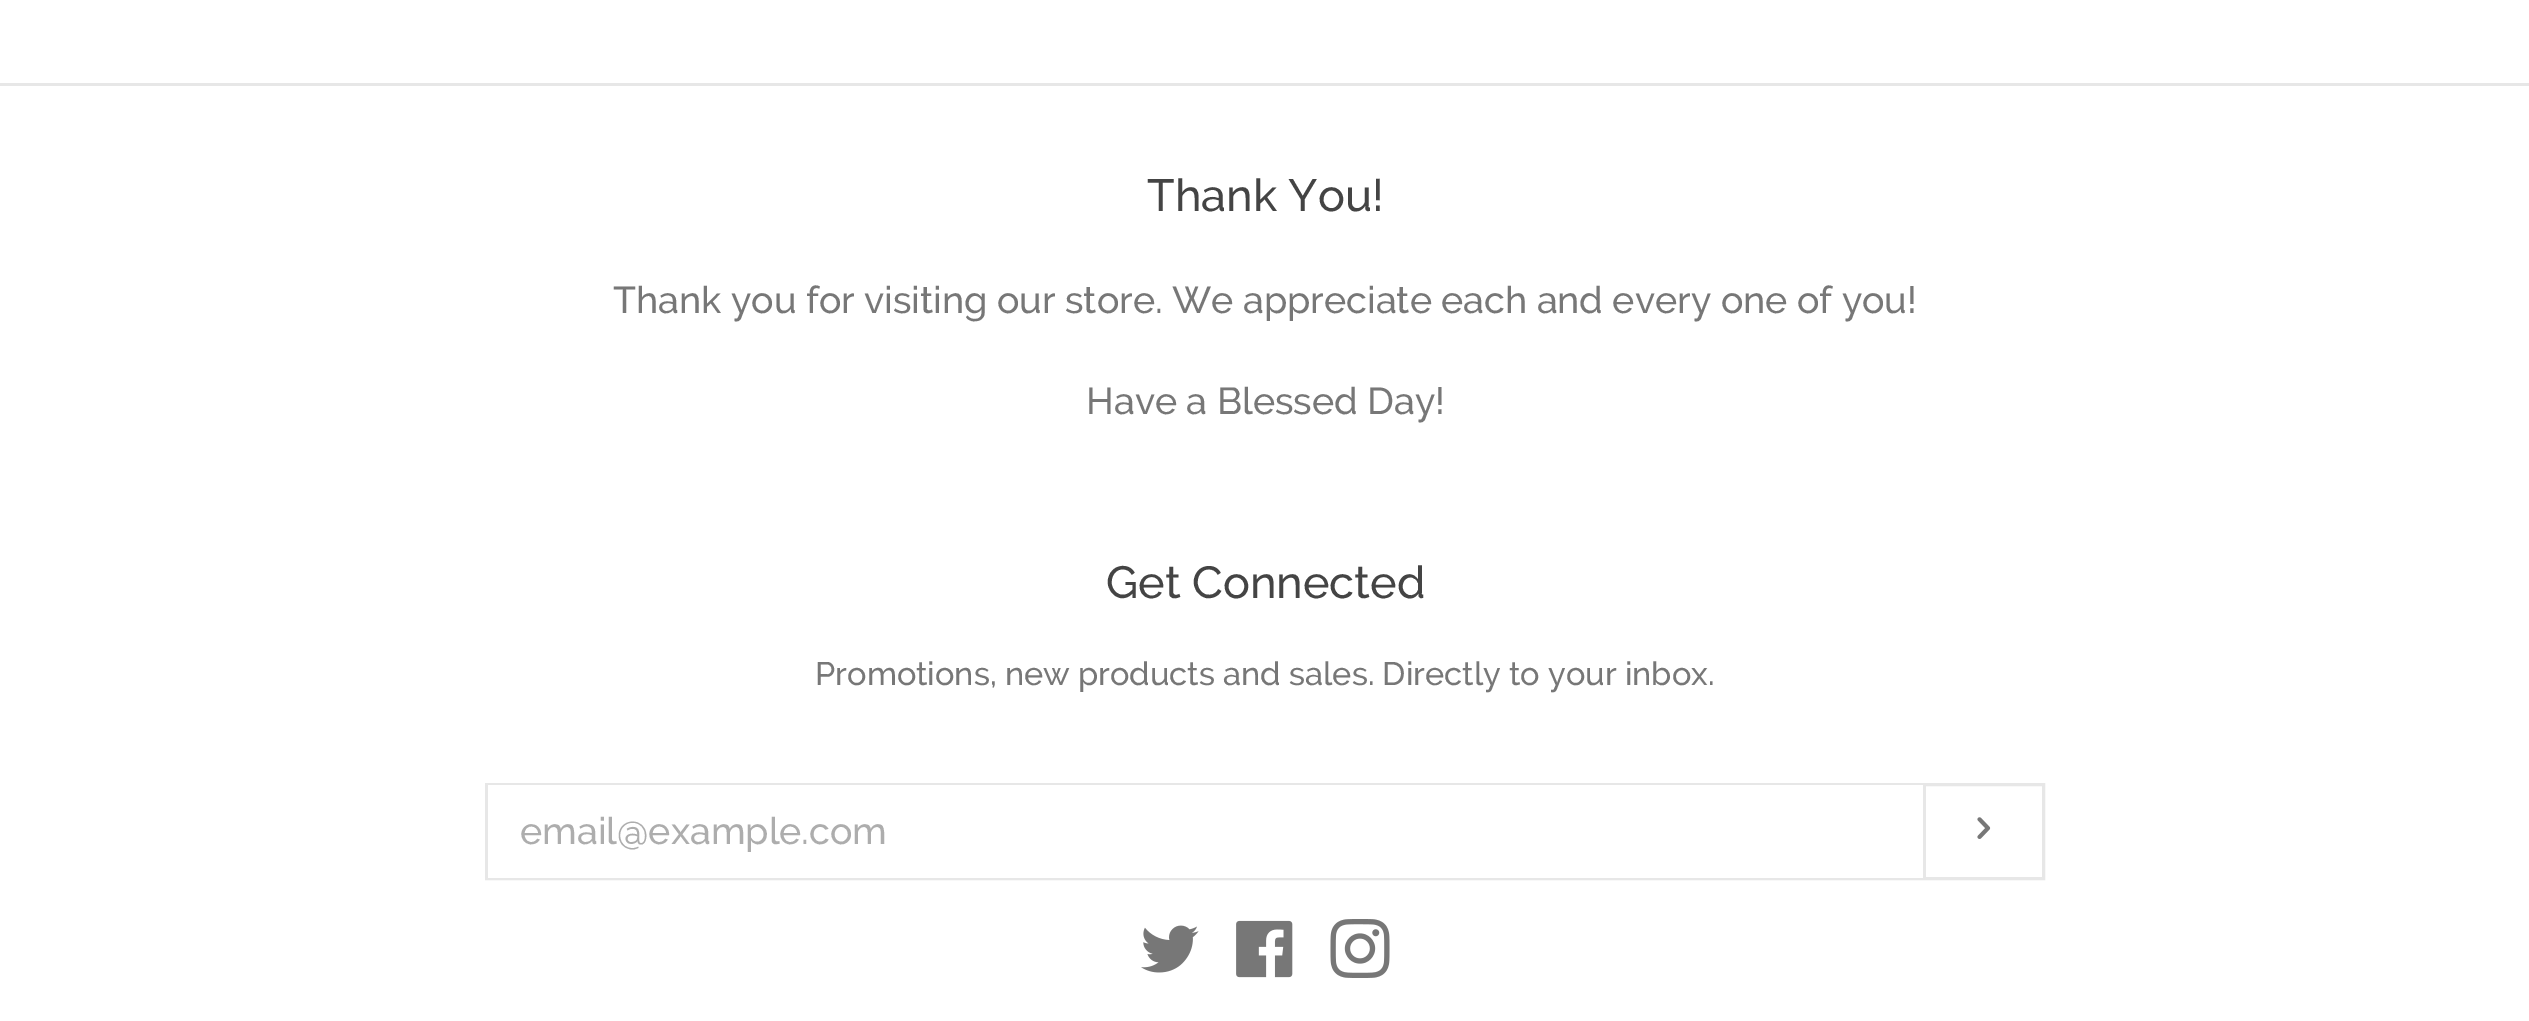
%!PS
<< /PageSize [2529 1021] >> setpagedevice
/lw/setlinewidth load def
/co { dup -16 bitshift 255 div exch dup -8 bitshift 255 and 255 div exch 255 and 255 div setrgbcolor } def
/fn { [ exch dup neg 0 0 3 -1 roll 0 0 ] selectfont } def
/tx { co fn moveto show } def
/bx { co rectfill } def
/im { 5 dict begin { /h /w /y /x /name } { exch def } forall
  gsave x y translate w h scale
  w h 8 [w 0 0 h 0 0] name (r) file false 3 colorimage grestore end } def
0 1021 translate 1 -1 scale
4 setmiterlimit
0 0 2529 1021 16#FFFFFF bx
0 83 2529 3 16#E7E7E7 bx
3 lw
486.5 784.5 1557 94 rectstroke
488 785 1435 93 16#FFFFFF bx
1923 785 3 93 16#E7E7E7 bx
(media/1.raw) 1977 817 14 22 im
(media/2.raw) 1141 925 58 48 im
(media/3.raw) 1236 920 57 58 im
(media/4.raw) 1330 919 60 59 im
(Thank You!) 1147 211 /Raleway-Medium 45 16#444444 tx
(Thank you for visiting our store. We appreciate each and every one of you!) 613 313 /Raleway-Medium 37.5 16#777777 tx
(Have a Blessed Day!) 1086 414 /Raleway-Medium 37.5 16#777777 tx
(Get Connected) 1106 598 /Raleway-Medium 45 16#444444 tx
(Promotions, new products and sales. Directly to your inbox.) 815 685 /Raleway-Medium 32.5 16#777777 tx
(email@example.com) 520 844 /Raleway-Medium 37.5 16#ADADAD tx
showpage
